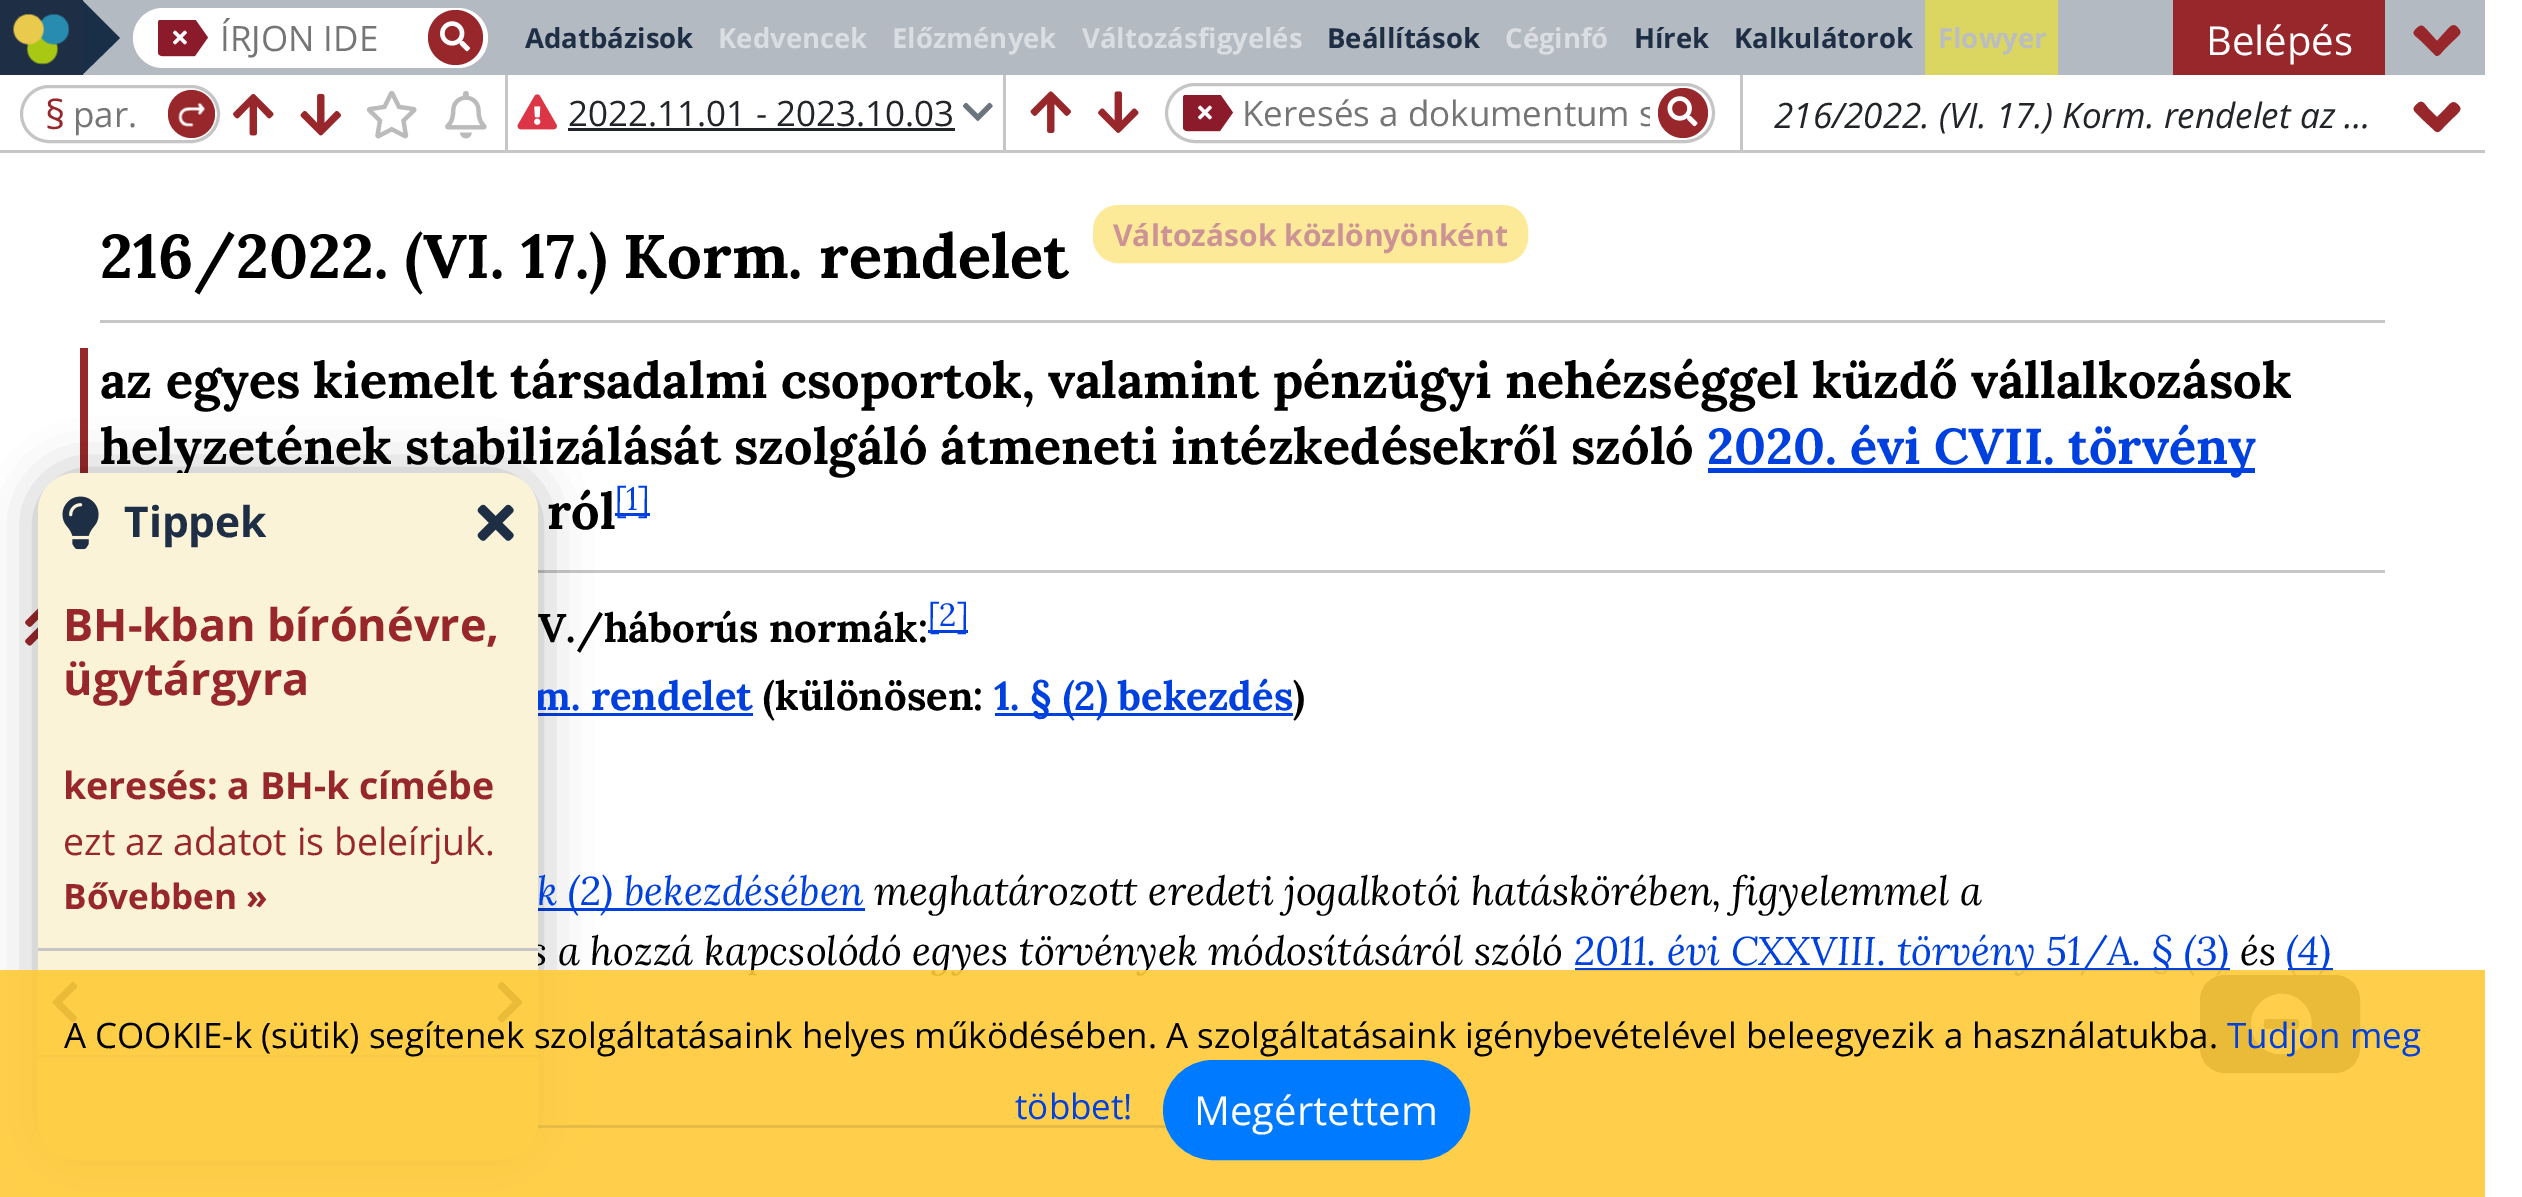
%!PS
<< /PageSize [2522 1197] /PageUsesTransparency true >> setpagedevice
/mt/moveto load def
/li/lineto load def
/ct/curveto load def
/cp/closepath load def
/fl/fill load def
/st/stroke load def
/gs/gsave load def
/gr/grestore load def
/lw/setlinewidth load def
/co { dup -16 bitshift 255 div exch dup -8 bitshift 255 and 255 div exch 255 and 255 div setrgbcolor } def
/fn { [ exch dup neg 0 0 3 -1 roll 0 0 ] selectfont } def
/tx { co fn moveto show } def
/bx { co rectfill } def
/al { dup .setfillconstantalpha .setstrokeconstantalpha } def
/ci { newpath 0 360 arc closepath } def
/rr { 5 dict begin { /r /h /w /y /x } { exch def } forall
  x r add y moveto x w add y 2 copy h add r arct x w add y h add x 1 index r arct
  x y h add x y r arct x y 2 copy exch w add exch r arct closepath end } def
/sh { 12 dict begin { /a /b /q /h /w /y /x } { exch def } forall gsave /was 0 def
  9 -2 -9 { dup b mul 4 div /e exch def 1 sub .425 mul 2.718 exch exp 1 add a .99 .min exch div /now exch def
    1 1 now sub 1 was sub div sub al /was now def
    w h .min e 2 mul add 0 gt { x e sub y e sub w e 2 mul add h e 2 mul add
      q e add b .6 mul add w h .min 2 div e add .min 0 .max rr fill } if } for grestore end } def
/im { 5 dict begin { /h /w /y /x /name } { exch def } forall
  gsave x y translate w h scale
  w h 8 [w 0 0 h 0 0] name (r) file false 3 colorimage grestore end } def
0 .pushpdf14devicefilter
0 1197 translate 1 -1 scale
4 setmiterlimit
0 0 2522 1197 16#FFFFFF bx
0 0 83 75 16#1E2E45 bx
(media/1.raw) 13 13 57 52 im
83 0 2402 75 16#B4BAC2 bx
16#192F47 co
82 75 mt 82 0 li 120 38 li cp fl
16#FFFFFF co
133 8 355 60 30 rr fl
(media/2.raw) 158 20 50 37 im
16#98272B co
455.5 37.5 27.5 ci fl
(media/3.raw) 440 21 30 31 im
1925 0 133 75 16#DAD661 bx
2173 0 212 75 16#98272B bx
2435 55 mt 2421 41 li 2415 35 2410 34 2417 28 ct 2422 23 2424 27 2428 31 ct 2437 41 li 2446 31 li 2448 29 2452 23 2456 26 ct 2464 33 2460 34 2453 41 ct 2443 51 li 2441 53 2438 58 2435 55 ct cp fl
0 150 2485 3 16#C6C6C6 bx
505 75 3 75 16#C6C6C6 bx
16#C5C5C5 co
3 lw
21.5 86.5 197 55 27.5 rr st
16#98272B co
168 90 47 48 23.5 rr fl
(media/4.raw) 178 103 27 24 im
(media/5.raw) 233 93 41 43 im
(media/6.raw) 300 93 41 43 im
(media/7.raw) 366 91 51 48 im
(media/8.raw) 445 91 42 48 im
1003 75 3 75 16#C6C6C6 bx
(media/9.raw) 517 94 40 36 im
568 128 387 3 16#212529 bx
(media/10.raw) 963 102 30 19 im
1740 75 3 75 16#C6C6C6 bx
(media/11.raw) 1030 91 41 42 im
(media/12.raw) 1098 91 41 42 im
16#C5C5C5 co
1166.5 84.5 547 57 28.5 rr st
(media/2.raw) 1183 95 50 37 im
16#98272B co
1683 113 25 ci fl
(media/13.raw) 1667 96 31 31 im
2435 131 mt 2421 118 li 2415 111 2410 110 2417 104 ct 2422 99 2424 103 2428 108 ct 2437 117 li 2446 108 li 2448 106 2452 100 2456 103 ct 2464 109 2460 111 2453 118 ct 2443 128 li 2441 130 2438 134 2435 131 ct cp fl
100 320 2285 3 16#C6C6C6 bx
16#FDEA99 co
1094.5 206.5 432 55 23.5 rr gs fl gr
st
538 570 1847 3 16#C6C6C6 bx
80 348 8 125 16#98272B bx
1708 468 547 5 16#0040DF bx
615 513 35 3 16#0040DF bx
(media/14.raw) 25 608 13 38 im
928 630 40 3 16#0040DF bx
538 713 215 3 16#0040DF bx
995 713 298 3 16#0040DF bx
538 908 327 3 16#0040DF bx
1575 968 655 3 16#0040DF bx
2288 968 45 3 16#0040DF bx
537 1125 630 3 16#0040DF bx
16#000000 co
38 473 500 687 38 25 .3 sh
(ÍRJON IDE) 220 51 /OpenSans-Regular 35 16#757575 tx
(Adatbázisok) 525 48 /OpenSans-Bold 27.5 16#1E2E45 tx
(Kedvencek) 718 48 /OpenSans-Bold 27.5 16#DADDE1 tx
(Előzmények) 892 48 /OpenSans-Bold 27.5 16#DADDE1 tx
(Változásfigyelés) 1082 48 /OpenSans-Bold 27.5 16#DADDE1 tx
(Beállítások) 1327 48 /OpenSans-Bold 27.5 16#1E2E45 tx
(Céginfó) 1505 48 /OpenSans-Bold 27.5 16#DADDE1 tx
(Hírek) 1634 48 /OpenSans-Bold 27.5 16#1E2E45 tx
(Kalkulátorok) 1734 48 /OpenSans-Bold 27.5 16#1E2E45 tx
(Flowyer) 1938 48 /OpenSans-Bold 27.5 16#BABDC1 tx
(Belépés) 2206 55 /OpenSans-Regular 40 16#FFFFFF tx
(§) 45 129 /OpenSans-Regular 40 16#98272B tx
(par.) 73 127 /OpenSans-Regular 35 16#757575 tx
(2022.11.01 - 2023.10.03) 568 126 /OpenSans-Regular 35 16#212529 tx
gs
1243 88 407 47 rectclip
(Keresés a dokumentum s) 1242 126 /OpenSans-Regular 35 16#757575 tx
gr
(216/2022. \(VI. 17.\) Korm. rendelet) 1774 128 /OpenSans-Italic 35 16#212529 tx
(az …) 2300 128 /OpenSans-Italic 35 16#212529 tx
(216/2022. \(VI. 17.\) Korm. rendelet) 100 278 /Lora-Bold 61.6 16#000000 tx
(Változások közlönyönként) 1113 246 /OpenSans-Bold 30 16#CC9395 tx
(az egyes kiemelt társadalmi csoportok, valamint pénzügyi nehézséggel küzdő vállalkozások) 100 398 /Lora-Bold 50.4 16#000000 tx
(helyzetének stabilizálását szolgáló átmeneti intézkedésekről szóló) 100 464 /Lora-Bold 50.4 16#000000 tx
(2020. évi CVII. törvény) 1707 464 /Lora-Bold 50.4 16#0040DF tx
(ról) 547 529 /Lora-Bold 50.4 16#000000 tx
([1]) 615 510 /Lora-Regular 32 16#0040DF tx
(V./háborús normák:) 538 642 /Lora-Bold 40 16#000000 tx
([2]) 928 626 /Lora-Regular 32 16#0040DF tx
(m. rendelet) 534 710 /Lora-Bold 40 16#0040DF tx
(\(különösen:) 763 710 /Lora-Bold 40 16#000000 tx
(1. § \(2\) bekezdés) 994 710 /Lora-Bold 40 16#0040DF tx
(\)) 1293 710 /Lora-Bold 40 16#000000 tx
(k \(2\) bekezdésében) 537 905 /Lora-Italic 40 16#0040DF tx
(meghatározott eredeti jogalkotói hatáskörében, figyelemmel a) 874 905 /Lora-Italic 40 16#000000 tx
(s a hozzá kapcsolódó egyes törvények módosításáról szóló) 530 965 /Lora-Italic 40 16#000000 tx
(2011. évi CXXVIII. törvény 51/A. § \(3\)) 1574 965 /Lora-Italic 40 16#0040DF tx
(és) 2240 965 /Lora-Italic 40 16#000000 tx
(\(4\)) 2286 965 /Lora-Italic 40 16#0040DF tx
16#FAF3D8 co
38 473 500 687 38 rr fl
(media/15.raw) 62 496 37 54 im
(Tippek) 124 537 /OpenSans-Bold 42.5 16#1E2E45 tx
(media/16.raw) 477 504 37 37 im
(BH-kban bírónévre,) 63 641 /OpenSans-Bold 45 16#98272B tx
(ügytárgyra) 63 695 /OpenSans-Bold 45 16#98272B tx
(keresés: a BH-k címébe) 63 799 /OpenSans-Bold 37.5 16#98272B tx
(ezt az adatot is beleírjuk.) 63 855 /OpenSans-Regular 37.5 16#98272B tx
(Bővebben ») 63 909 /OpenSans-Bold 35 16#98272B tx
38 948 500 3 16#C6C6C6 bx
(media/17.raw) 52 982 26 41 im
(media/18.raw) 497 982 26 41 im
38 1055 500 3 16#C6C6C6 bx
16#1E2E45 co
2202.5 977.5 155 93 22.5 rr gs fl gr
5 lw
st
16#FFFFFF co
2260 1003 mt 2265 998 2271 995 2278 994 ct 2306 991 2323 1025 2303 1045 ct 2298 1050 2291 1054 2284 1054 ct 2256 1057 2240 1023 2260 1003 ct cp 2265 1029 mt 2297 1029 li 2298 1029 2299 1028 2299 1027 ct 2299 1021 li 2299 1020 2298 1019 2297 1019 ct 2265 1019 li 2264 1019 2264 1020 2264 1021 ct 2264 1027 li 2264 1028 2264 1029 2265 1029 ct cp fl
0.9 al
0 970 2485 227 16#FFCA37 bx
1 al
(A COOKIE-k \(sütik\) segítenek szolgáltatásaink helyes működésében. A szolgáltatásaink igénybevételével beleegyezik a használatukba.) 64 1048 /OpenSans-Regular 35 16#000000 tx
(Tudjon meg) 2227 1048 /OpenSans-Regular 35 16#0040DF tx
(többet!) 1015 1119 /OpenSans-Regular 35 16#0040DF tx
16#007BFF co
1164.5 1061.5 304 97 48.5 rr gs fl gr
3 lw
st
(Megértettem) 1194 1125 /OpenSans-Regular 40 16#FFFFFF tx
.poppdf14devicefilter showpage
